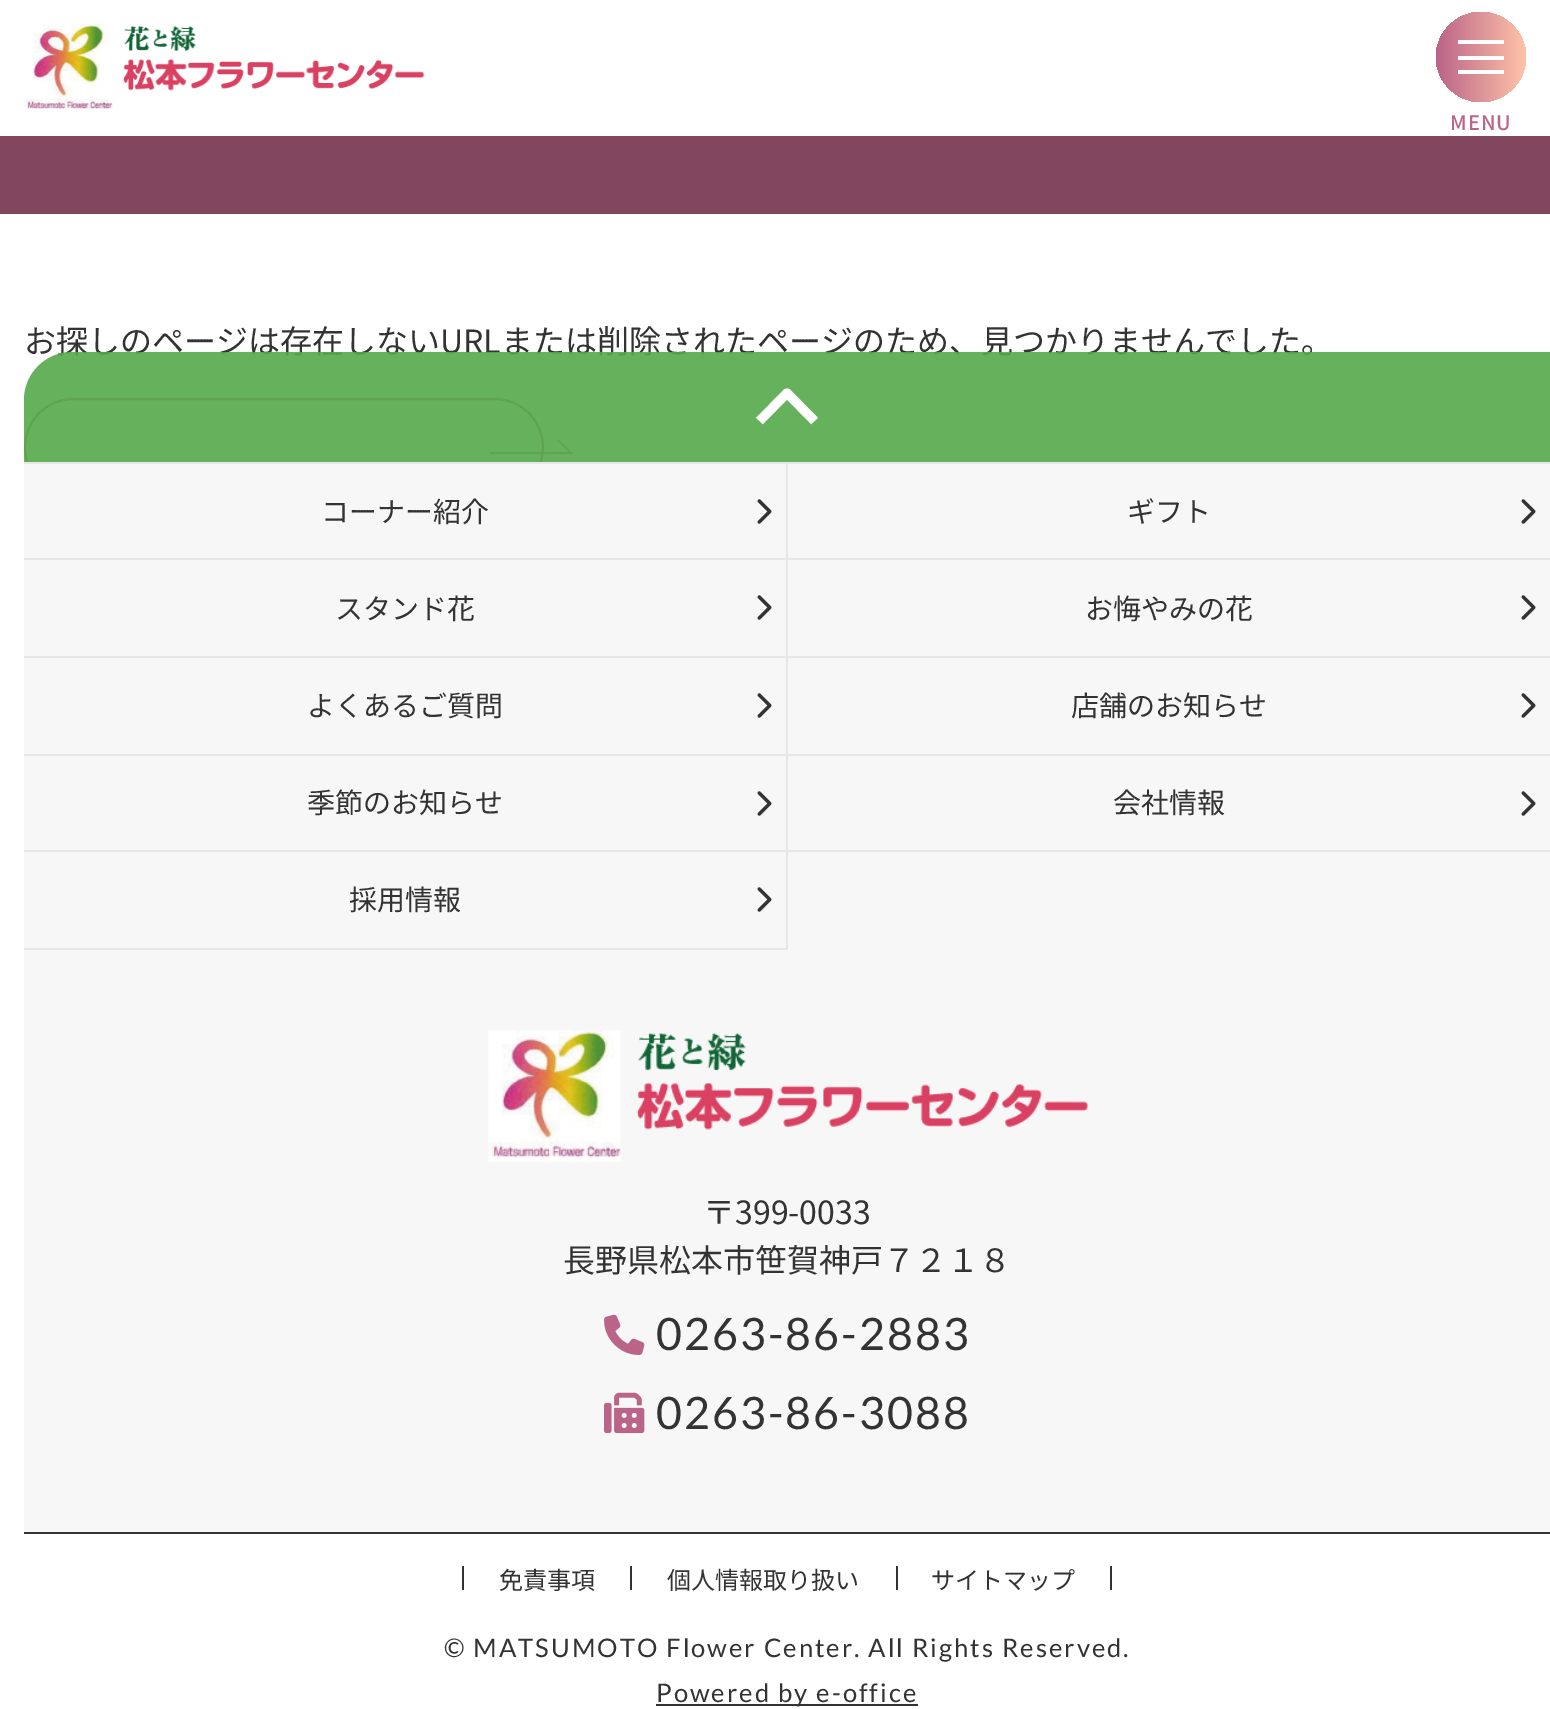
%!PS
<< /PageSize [1550 1709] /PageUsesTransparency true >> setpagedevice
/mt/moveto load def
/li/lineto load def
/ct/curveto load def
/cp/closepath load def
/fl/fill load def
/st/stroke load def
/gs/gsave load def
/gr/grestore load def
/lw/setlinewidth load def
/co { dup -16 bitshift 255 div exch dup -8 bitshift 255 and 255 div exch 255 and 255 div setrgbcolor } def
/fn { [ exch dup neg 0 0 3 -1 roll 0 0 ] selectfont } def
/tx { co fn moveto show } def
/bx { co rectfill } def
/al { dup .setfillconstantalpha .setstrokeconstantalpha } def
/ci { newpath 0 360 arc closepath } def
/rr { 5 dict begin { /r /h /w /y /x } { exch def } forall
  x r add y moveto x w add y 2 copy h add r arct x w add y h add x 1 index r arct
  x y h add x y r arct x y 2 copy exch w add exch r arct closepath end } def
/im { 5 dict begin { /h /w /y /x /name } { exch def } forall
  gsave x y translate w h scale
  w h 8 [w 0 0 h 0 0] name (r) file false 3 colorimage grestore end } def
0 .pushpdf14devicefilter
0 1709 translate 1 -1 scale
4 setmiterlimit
0 0 1550 1709 16#FFFFFF bx
(media/1.raw) 24 24 400 85 im
gs 1481 57 45 ci clip newpath
<< /ShadingType 2 /ColorSpace /DeviceRGB /Coords [1436 57 1526 57] /Extend [true true] /Function << /FunctionType 2 /Domain [0 1] /C0 [.729 .392 .537] /C1 [1 .765 .659] /N 1 >> >> shfill gr
1458 40 46 4 16#FFFFFF bx
1458 56 46 4 16#FFFFFF bx
1458 70 46 4 16#FFFFFF bx
0 136 1550 78 16#82465F bx
16#BA6489 co
2 lw
25 399 518 96 48 rr st
557 440 mt 559 440 li 573 454 li 571 454 li cp fl
489 452 mt 571 452 li 573 454 li 491 454 li cp fl
24 464 1526 1068 16#F7F7F7 bx
24 462 1526 2 16#E7E7E7 bx
786 464 2 486 16#E7E7E7 bx
24 558 1526 2 16#E7E7E7 bx
(media/2.raw) 757 499 15 25 im
(media/2.raw) 1521 499 15 25 im
24 656 1526 2 16#E7E7E7 bx
(media/2.raw) 757 595 15 25 im
(media/2.raw) 1521 595 15 25 im
24 754 1526 2 16#E7E7E7 bx
(media/2.raw) 757 693 15 25 im
(media/2.raw) 1521 693 15 25 im
24 850 1526 2 16#E7E7E7 bx
(media/2.raw) 757 791 15 25 im
(media/2.raw) 1521 791 15 25 im
24 948 764 2 16#E7E7E7 bx
(media/2.raw) 757 887 15 25 im
(media/3.raw) 488 1030 600 132 im
(media/4.raw) 604 1314 41 41 im
(media/5.raw) 604 1392 41 42 im
24 1532 1526 2 16#333333 bx
462 1566 2 24 16#333333 bx
630 1566 2 24 16#333333 bx
896 1566 2 24 16#333333 bx
1110 1566 2 24 16#333333 bx
656 1704 262 2 16#333333 bx
/NotoSansJP-Medium 20 fn
16#BA6489 co
1450 130 mt 1 0 (MENU) ashow
(お探しのページは存在しないURLまたは削除されたページのため、見つかりませんでした。) 24 353 /NotoSansJP-Regular 32 16#333333 tx
0.9 al
16#55AA4A co
72 352 mt 1550 352 li 1550 462 li 24 462 li 24 400 li 24 373.5 45.5 352 72 352 ct cp fl
1 al
16#FFFFFF co
9.2 lw
1 setlinejoin
814.5 421 mt 787 393 li 759.5 421 li st
(コーナー紹介) 321 522 /NotoSansJP-Regular 28 16#333333 tx
(ギフト) 1127 522 /NotoSansJP-Regular 28 16#333333 tx
(スタンド花) 335 619 /NotoSansJP-Regular 28 16#333333 tx
(お悔やみの花) 1085 619 /NotoSansJP-Regular 28 16#333333 tx
(よくあるご質問) 307 716 /NotoSansJP-Regular 28 16#333333 tx
(店舗のお知らせ) 1071 716 /NotoSansJP-Regular 28 16#333333 tx
(季節のお知らせ) 307 813 /NotoSansJP-Regular 28 16#333333 tx
(会社情報) 1113 813 /NotoSansJP-Regular 28 16#333333 tx
(採用情報) 349 910 /NotoSansJP-Regular 28 16#333333 tx
(〒399-0033) 703 1224 /NotoSansJP-Regular 32 16#333333 tx
(長野県松本市笹賀神戸７２１８) 563 1272 /NotoSansJP-Regular 32 16#333333 tx
/Lato-Regular 44.75 fn
656 1350 mt 2 0 (0263-86-2883) ashow
656 1429 mt 2 0 (0263-86-3088) ashow
(免責事項) 499 1589 /NotoSansJP-Regular 24 16#333333 tx
(個人情報取り扱い) 667 1589 /NotoSansJP-Regular 24 16#333333 tx
(サイトマップ) 931 1589 /NotoSansJP-Regular 24 16#333333 tx
/Lato-Regular 25.6 fn
444 1657 mt 2 0 (© MATSUMOTO Flower Center. All Rights Reserved.) ashow
656 1702 mt 2 0 (Powered by e-office) ashow
.poppdf14devicefilter showpage
